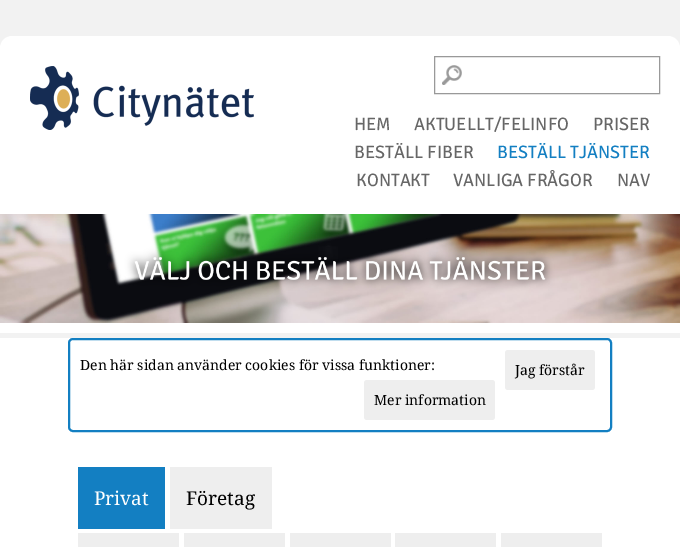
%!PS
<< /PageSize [680 547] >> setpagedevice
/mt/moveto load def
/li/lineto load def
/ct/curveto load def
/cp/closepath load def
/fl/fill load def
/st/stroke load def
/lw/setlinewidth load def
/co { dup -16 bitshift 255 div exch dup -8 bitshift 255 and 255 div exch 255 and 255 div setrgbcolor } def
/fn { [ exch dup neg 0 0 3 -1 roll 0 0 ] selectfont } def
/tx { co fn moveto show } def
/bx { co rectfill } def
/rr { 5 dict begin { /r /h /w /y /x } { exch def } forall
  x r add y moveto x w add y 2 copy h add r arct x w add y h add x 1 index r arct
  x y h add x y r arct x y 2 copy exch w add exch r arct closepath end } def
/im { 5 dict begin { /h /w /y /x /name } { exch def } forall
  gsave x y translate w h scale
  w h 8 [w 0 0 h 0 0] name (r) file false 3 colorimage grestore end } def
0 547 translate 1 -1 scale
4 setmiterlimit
0 0 680 547 16#F2F2F2 bx
16#FFFFFF co
12 36 mt 668 36 li 674.5 36 680 41.5 680 48 ct 680 333 li 0 333 li 0 48 li 0 41.5 5.5 36 12 36 ct cp fl
(media/1.raw) 30 66 224 64 im
(media/2.raw) 442 65 20 20 im
16#999999 co
434.5 56.5 225 37 rectstroke
(media/3.raw) 0 214 680 109 im
0 338 680 209 16#FFFFFF bx
16#137FC2 co
2 lw
69 339 542 92 4 rr st
16#EEEEEE co
505 350 90 40 3 rr fl
364 380 131 40 3 rr fl
78 467 87 62 16#137FC2 bx
170 467 102 62 16#EEEEEE bx
78 533 101 14 16#EEEEEE bx
184 533 101 14 16#EEEEEE bx
290 533 101 14 16#EEEEEE bx
395 533 101 14 16#EEEEEE bx
501 533 101 14 16#EEEEEE bx
(HEM) 354 130 /SignikaNegative-Regular 18 16#666666 tx
(AKTUELLT/FELINFO) 414 130 /SignikaNegative-Regular 18 16#666666 tx
(PRISER) 593 130 /SignikaNegative-Regular 18 16#666666 tx
(BESTÄLL FIBER) 354 158 /SignikaNegative-Regular 18 16#666666 tx
(BESTÄLL TJÄNSTER) 497 158 /SignikaNegative-Regular 18 16#137FC2 tx
(KONTAKT) 356 186 /SignikaNegative-Regular 18 16#666666 tx
(VANLIGA FRÅGOR) 453 186 /SignikaNegative-Regular 18 16#666666 tx
(NAV) 617 186 /SignikaNegative-Regular 18 16#666666 tx
(Den här sidan använder cookies för vissa funktioner:) 80 370 /NotoSerif-Regular 14 16#000000 tx
(Jag förstår) 515 375 /NotoSerif-Regular 14 16#000000 tx
(Mer information) 374 405 /NotoSerif-Regular 14 16#000000 tx
(Privat) 94 505 /NotoSerif-Regular 19 16#FFFFFF tx
(Företag) 186 505 /NotoSerif-Regular 19 16#000000 tx
showpage
